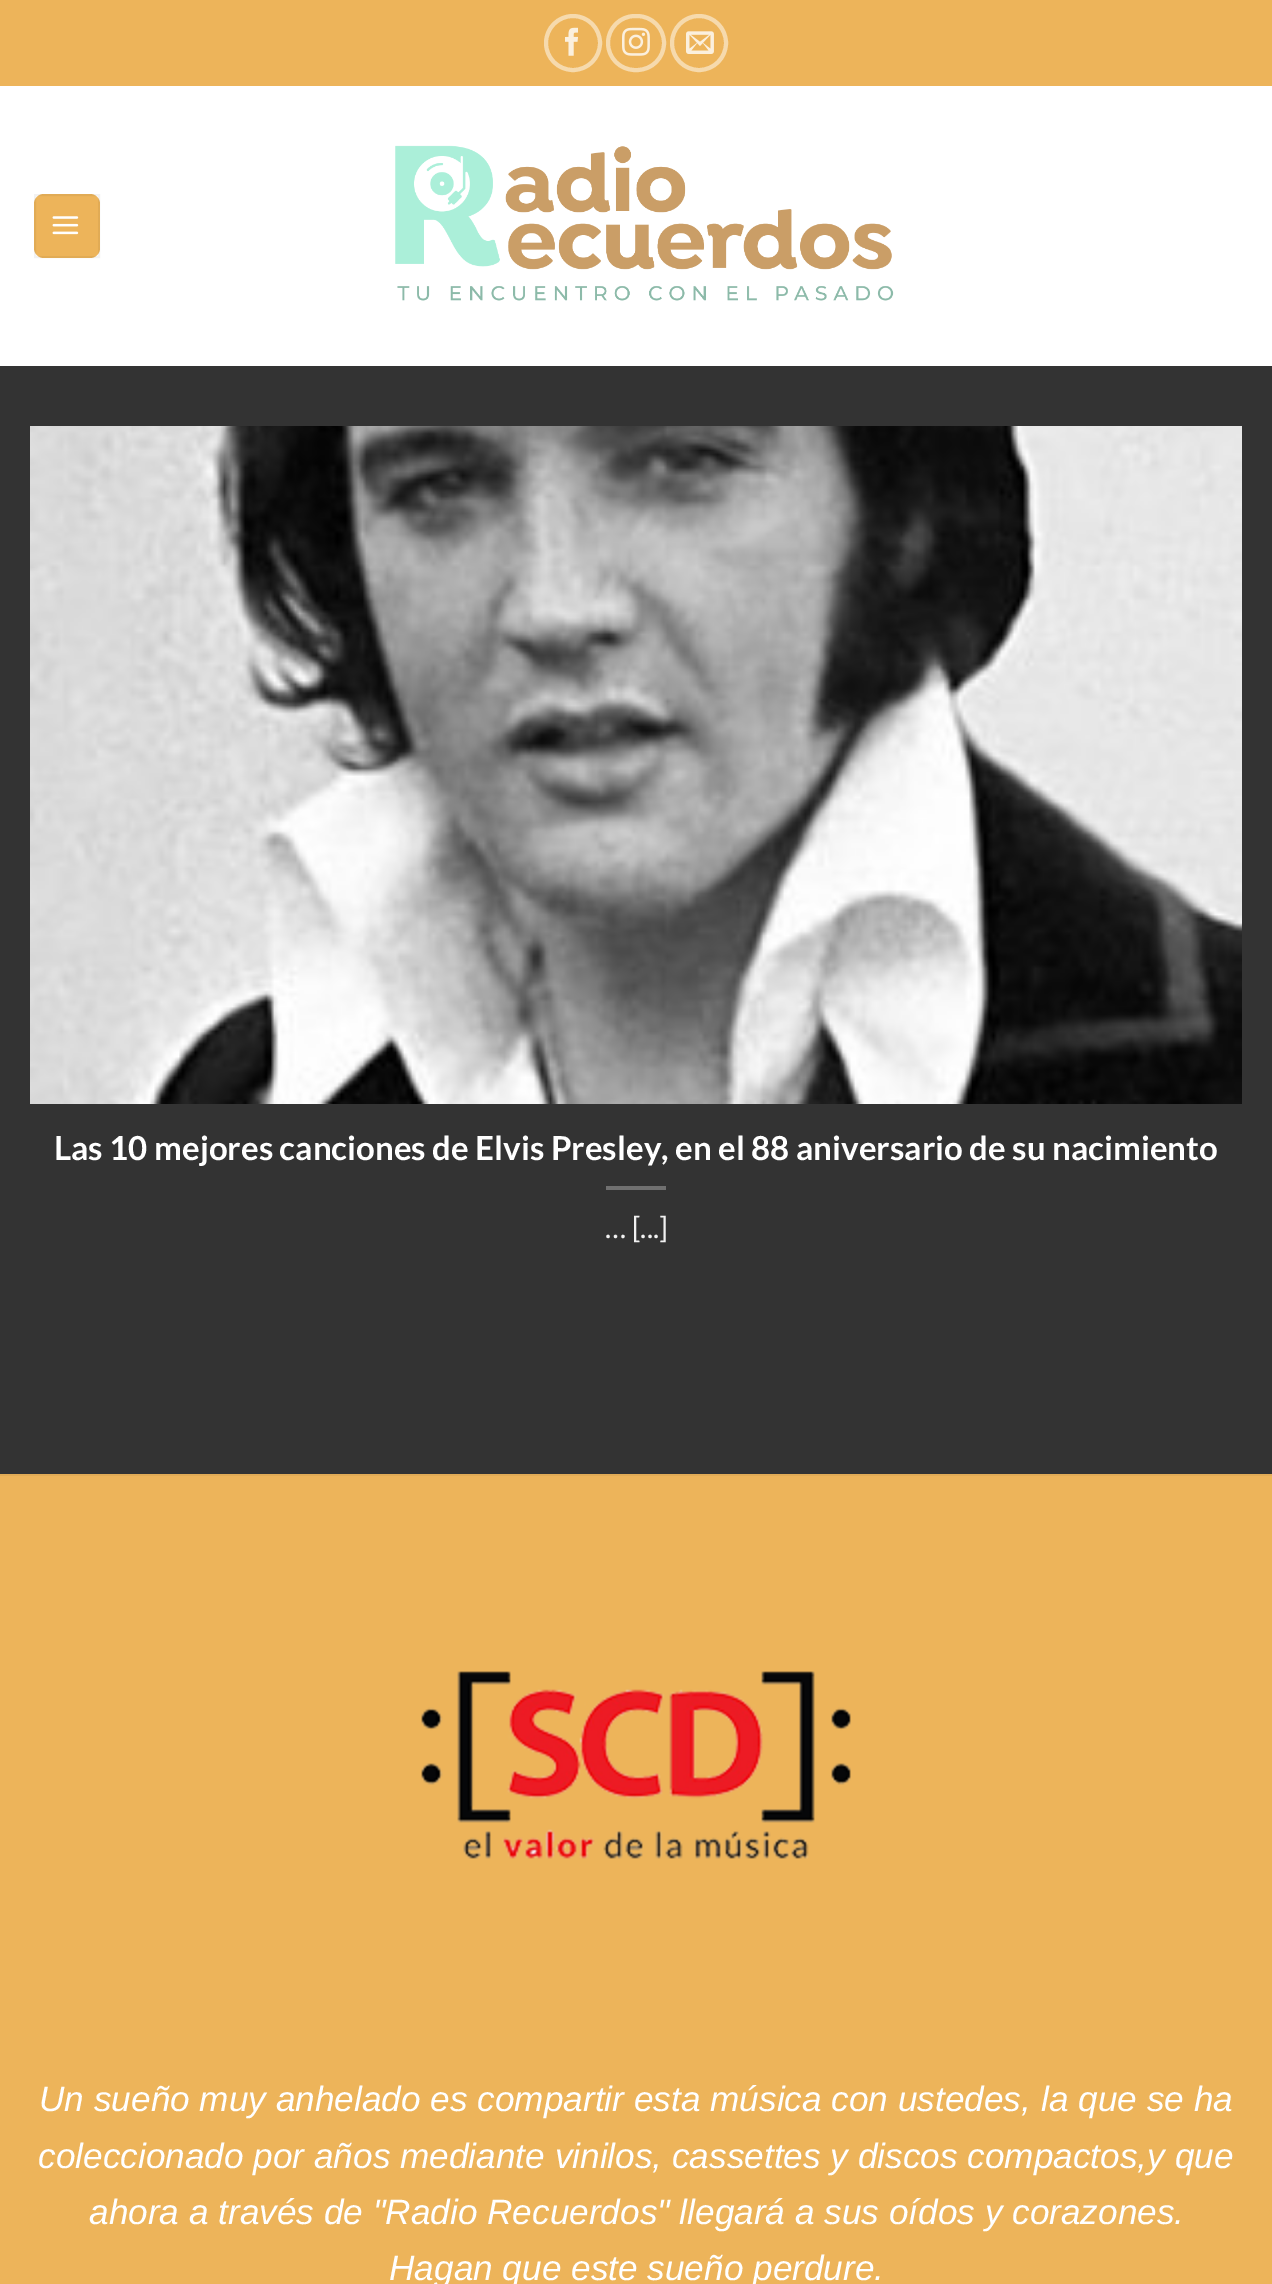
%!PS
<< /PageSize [1272 2284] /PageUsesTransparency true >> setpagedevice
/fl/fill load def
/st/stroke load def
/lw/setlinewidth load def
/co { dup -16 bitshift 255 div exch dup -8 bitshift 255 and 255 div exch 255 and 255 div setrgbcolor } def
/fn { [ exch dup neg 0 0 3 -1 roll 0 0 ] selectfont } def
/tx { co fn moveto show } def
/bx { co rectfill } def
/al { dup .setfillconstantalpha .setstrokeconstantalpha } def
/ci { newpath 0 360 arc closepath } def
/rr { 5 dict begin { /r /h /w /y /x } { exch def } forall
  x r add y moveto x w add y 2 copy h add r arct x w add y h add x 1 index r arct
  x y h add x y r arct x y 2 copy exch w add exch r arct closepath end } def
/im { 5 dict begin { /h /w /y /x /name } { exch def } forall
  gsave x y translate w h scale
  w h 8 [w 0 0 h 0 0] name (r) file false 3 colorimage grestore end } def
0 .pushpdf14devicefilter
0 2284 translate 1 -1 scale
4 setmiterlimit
0 0 1272 2284 16#FFFFFF bx
0 0 1272 86 16#EDB45A bx
16#F6DAAD co
4 lw
573 43 27 ci st
(media/1.raw) 565 27 13 29 im
608 16 56 54 27 rr st
(media/2.raw) 622 27 28 29 im
699 43 27 ci st
(media/3.raw) 686 31 28 23 im
16#EDB45A co
34 194 66 64 10 rr fl
0.05 al
16#000000 co
2 lw
35 195 64 62 rectstroke
1 al
(media/4.raw) 52 216 27 19 im
(media/5.raw) 395 145 499 156 im
0 366 1272 1108 16#333333 bx
(media/6.raw) 30 426 1212 678 im
606 1186 60 4 16#707070 bx
0 1476 1272 808 16#EDB45A bx
0 1474 1272 2 16#E1AB56 bx
(media/7.raw) 421 1671 430 188 im
(Las 10 mejores canciones de Elvis Presley, en el 88 aniversario de su nacimiento) 54 1160 /Lato-Bold 33.1 16#FFFFFF tx
(… [...]) 605 1238 /Lato-Regular 29 16#F1F1F1 tx
(Un sueño muy anhelado es compartir esta música con ustedes,) 39 2111 /LiberationSans-Italic 35.2 16#FFFFFF tx
(la que se ha) 1041 2111 /LiberationSans-Italic 35.2 16#FFFFFF tx
(coleccionado por años mediante vinilos, cassettes y discos compactos,y que) 38 2168 /LiberationSans-Italic 35.2 16#FFFFFF tx
(ahora a través de "Radio Recuerdos" llegará a sus oídos y corazones.) 89 2224 /LiberationSans-Italic 35.2 16#FFFFFF tx
(Hagan que este sueño perdure.) 389 2280 /LiberationSans-Italic 35.2 16#FFFFFF tx
.poppdf14devicefilter showpage
